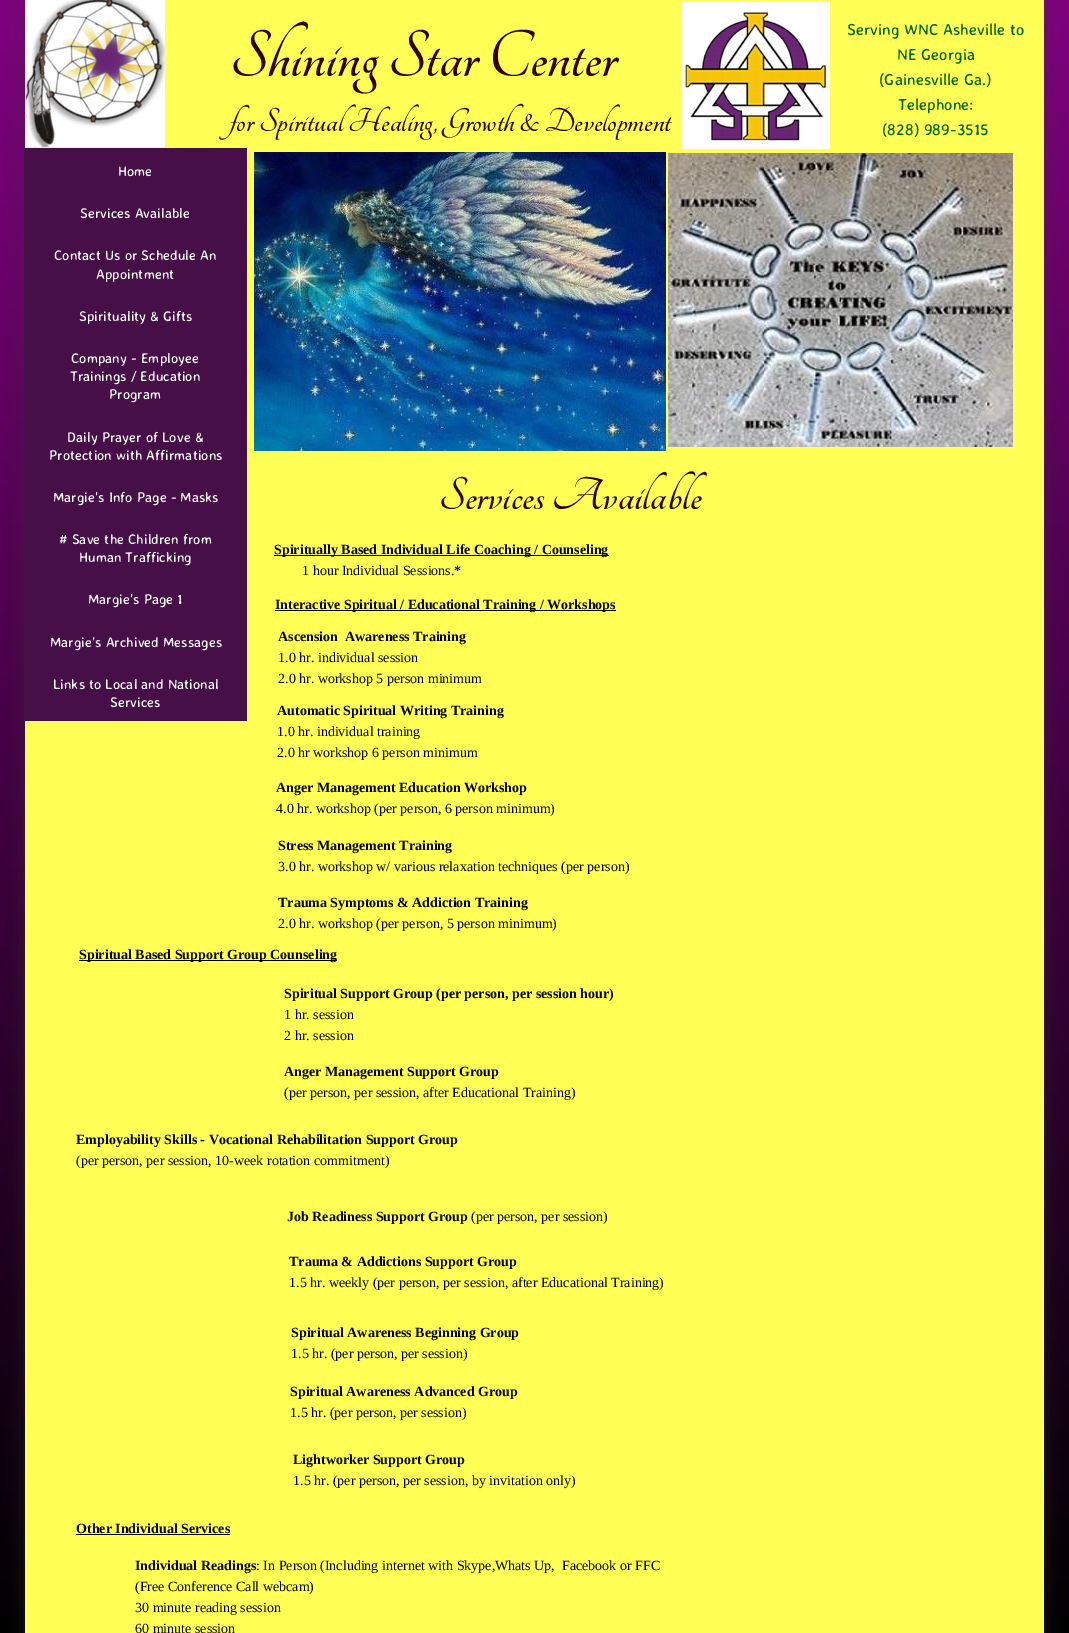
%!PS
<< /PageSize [1069 1633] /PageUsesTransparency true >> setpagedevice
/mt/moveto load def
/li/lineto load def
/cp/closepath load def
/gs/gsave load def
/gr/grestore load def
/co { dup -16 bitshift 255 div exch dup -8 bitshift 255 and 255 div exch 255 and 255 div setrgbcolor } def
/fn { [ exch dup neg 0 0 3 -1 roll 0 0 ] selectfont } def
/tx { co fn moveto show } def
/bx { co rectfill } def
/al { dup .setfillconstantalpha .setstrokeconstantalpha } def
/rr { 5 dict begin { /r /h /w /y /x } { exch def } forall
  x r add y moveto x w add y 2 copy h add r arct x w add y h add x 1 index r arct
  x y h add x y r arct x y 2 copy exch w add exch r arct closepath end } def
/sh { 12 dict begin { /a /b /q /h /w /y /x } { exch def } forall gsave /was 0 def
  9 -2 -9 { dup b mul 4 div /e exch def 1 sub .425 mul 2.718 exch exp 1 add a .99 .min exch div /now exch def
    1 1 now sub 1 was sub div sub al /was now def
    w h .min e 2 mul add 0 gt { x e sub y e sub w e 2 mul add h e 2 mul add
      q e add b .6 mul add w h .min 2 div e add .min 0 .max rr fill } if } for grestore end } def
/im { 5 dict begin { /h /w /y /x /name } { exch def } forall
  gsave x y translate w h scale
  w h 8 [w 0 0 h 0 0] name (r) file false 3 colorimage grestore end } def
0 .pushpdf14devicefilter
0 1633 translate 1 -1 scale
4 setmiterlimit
0 0 1069 1633 16#FFFFFF bx
gs 0 0 mt 1069 0 li 1069 1633 li 0 1633 li cp clip newpath
<< /ShadingType 2 /ColorSpace /DeviceRGB /Coords [534 0 535 1633] /Extend [true true] /Function << /FunctionType 2 /Domain [0 1] /C0 [.498 0 .498] /C1 [0 0 0] /N 1 >> >> shfill gr
16#323232 co
25 7 1019 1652 0 8.5 .5 sh
25 0 1019 1633 16#FFFF56 bx
(media/1.raw) 26 0 139 147 im
(media/2.raw) 682 2 148 147 im
24 148 223 573 16#470F47 bx
(media/3.raw) 254 152 412 299 im
(media/4.raw) 668 153 345 294 im
274 555 335 1 16#000000 bx
275 610 341 1 16#000000 bx
79 960 258 1 16#000000 bx
76 1534 154 1 16#000000 bx
(Shining Star Center) 230 76 /Tangerine-Bold 72 16#330000 tx
(for Spiritual Healing, Growth & Development) 230 131 /Tangerine-Bold 36 16#330000 tx
(Serving WNC Asheville to) 847 35 /AveriaSansLibre-Regular 16 16#006400 tx
(NE Georgia) 897 60 /AveriaSansLibre-Regular 16 16#006400 tx
(\(Gainesville Ga.\)) 879 85 /AveriaSansLibre-Regular 16 16#006400 tx
(Telephone:) 898 110 /AveriaSansLibre-Regular 16 16#006400 tx
(\(828\) 989-3515) 882 135 /AveriaSansLibre-Regular 16 16#006400 tx
(Home) 118 176 /AveriaSansLibre-Regular 14 16#FFFFFF tx
(Services Available) 80 218 /AveriaSansLibre-Regular 14 16#FFFFFF tx
(Contact Us or Schedule An) 54 260 /AveriaSansLibre-Regular 14 16#FFFFFF tx
(Appointment) 96 279 /AveriaSansLibre-Regular 14 16#FFFFFF tx
(Spirituality & Gifts) 79 321 /AveriaSansLibre-Regular 14 16#FFFFFF tx
(Company - Employee) 71 363 /AveriaSansLibre-Regular 14 16#FFFFFF tx
(Trainings / Education) 70 381 /AveriaSansLibre-Regular 14 16#FFFFFF tx
(Program) 109 399 /AveriaSansLibre-Regular 14 16#FFFFFF tx
(Daily Prayer of Love &) 67 442 /AveriaSansLibre-Regular 14 16#FFFFFF tx
(Protection with Affirmations) 49 460 /AveriaSansLibre-Regular 14 16#FFFFFF tx
(Margie's Info Page - Masks) 53 502 /AveriaSansLibre-Regular 14 16#FFFFFF tx
(# Save the Children from) 59 544 /AveriaSansLibre-Regular 14 16#FFFFFF tx
(Human Trafficking) 79 562 /AveriaSansLibre-Regular 14 16#FFFFFF tx
(Margie's Page 1) 88 604 /AveriaSansLibre-Regular 14 16#FFFFFF tx
(Margie's Archived Messages) 50 647 /AveriaSansLibre-Regular 14 16#FFFFFF tx
(Links to Local and National) 53 689 /AveriaSansLibre-Regular 14 16#FFFFFF tx
(Services) 110 707 /AveriaSansLibre-Regular 14 16#FFFFFF tx
(Services Available) 439 509 /Tangerine-Bold 50 16#330000 tx
(Spiritually Based Individual Life Coaching / Counseling) 274 554 /LiberationSerif-Bold 14 16#000000 tx
(1 hour Individual Sessions.) 302 575 /LiberationSerif-Regular 14 16#000000 tx
(*) 454 575 /LiberationSerif-Bold 14 16#0000FF tx
(Interactive Spiritual / Educational Training / Workshops) 275 609 /LiberationSerif-Bold 14 16#000000 tx
(Ascension) 278 641 /LiberationSerif-Bold 14 16#000000 tx
(Awareness Training) 345 641 /LiberationSerif-Bold 14 16#000000 tx
(1.0 hr. individual session) 278 662 /LiberationSerif-Regular 14 16#000000 tx
(2.0 hr. workshop 5 person minimum) 278 683 /LiberationSerif-Regular 14 16#000000 tx
(Automatic Spiritual Writing Training) 277 715 /LiberationSerif-Bold 14 16#000000 tx
(1.0 hr. individual training) 277 736 /LiberationSerif-Regular 14 16#000000 tx
(2.0 hr workshop 6 person minimum) 277 757 /LiberationSerif-Regular 14 16#000000 tx
(Anger Management Education Workshop) 276 792 /LiberationSerif-Bold 14 16#000000 tx
(4.0 hr. workshop \(per person, 6 person minimum\)) 276 813 /LiberationSerif-Regular 14 16#000000 tx
(Stress Management Training) 278 850 /LiberationSerif-Bold 14 16#000000 tx
(3.0 hr. workshop w/ various relaxation techniques \(per person\)) 278 871 /LiberationSerif-Regular 14 16#000000 tx
(Trauma Symptoms & Addiction Training) 278 907 /LiberationSerif-Bold 14 16#000000 tx
(2.0 hr. workshop \(per person, 5 person minimum\)) 278 928 /LiberationSerif-Regular 14 16#000000 tx
(Spiritual Based Support Group Counseling) 79 959 /LiberationSerif-Bold 14 16#000000 tx
(Spiritual Support Group \(per person, per session hour\)) 284 998 /LiberationSerif-Bold 14 16#000000 tx
(1 hr. session) 284 1019 /LiberationSerif-Regular 14 16#000000 tx
(2 hr. session) 284 1040 /LiberationSerif-Regular 14 16#000000 tx
(Anger Management Support Group) 284 1076 /LiberationSerif-Bold 14 16#000000 tx
(\(per person, per session, after Educational Training\)) 284 1097 /LiberationSerif-Regular 14 16#000000 tx
(Employability Skills - Vocational Rehabilitation Support Group) 76 1144 /LiberationSerif-Bold 14 16#000000 tx
(\(per person, per session, 10-week rotation commitment\)) 76 1165 /LiberationSerif-Regular 14 16#000000 tx
(Job Readiness Support Group) 287 1221 /LiberationSerif-Bold 14 16#000000 tx
(\(per person, per session\)) 471 1221 /LiberationSerif-Regular 14 16#000000 tx
(Trauma & Addictions Support Group) 289 1266 /LiberationSerif-Bold 14 16#000000 tx
(1.5 hr. weekly \(per person, per session, after Educational Training\)) 289 1287 /LiberationSerif-Regular 14 16#000000 tx
(Spiritual Awareness Beginning Group) 291 1337 /LiberationSerif-Bold 14 16#000000 tx
(1.5 hr. \(per person, per session\)) 291 1358 /LiberationSerif-Regular 14 16#000000 tx
(Spiritual Awareness Advanced Group) 290 1396 /LiberationSerif-Bold 14 16#000000 tx
(1.5 hr. \(per person, per session\)) 290 1417 /LiberationSerif-Regular 14 16#000000 tx
(Lightworker Support Group) 293 1464 /LiberationSerif-Bold 14 16#000000 tx
(1.5 hr. \(per person, per session, by invitation only\)) 293 1485 /LiberationSerif-Regular 14 16#000000 tx
(Other Individual Services) 76 1533 /LiberationSerif-Bold 14 16#000000 tx
(Individual Readings) 135 1570 /LiberationSerif-Bold 14 16#000000 tx
(: In Person \(Including internet with Skype,Whats Up,  Facebook or FFC) 256 1570 /LiberationSerif-Regular 14 16#000000 tx
(\(Free Conference Call webcam\)) 135 1591 /LiberationSerif-Regular 14 16#000000 tx
(30 minute reading session) 135 1612 /LiberationSerif-Regular 14 16#000000 tx
(60 minute session) 135 1633 /LiberationSerif-Regular 14 16#000000 tx
.poppdf14devicefilter showpage
